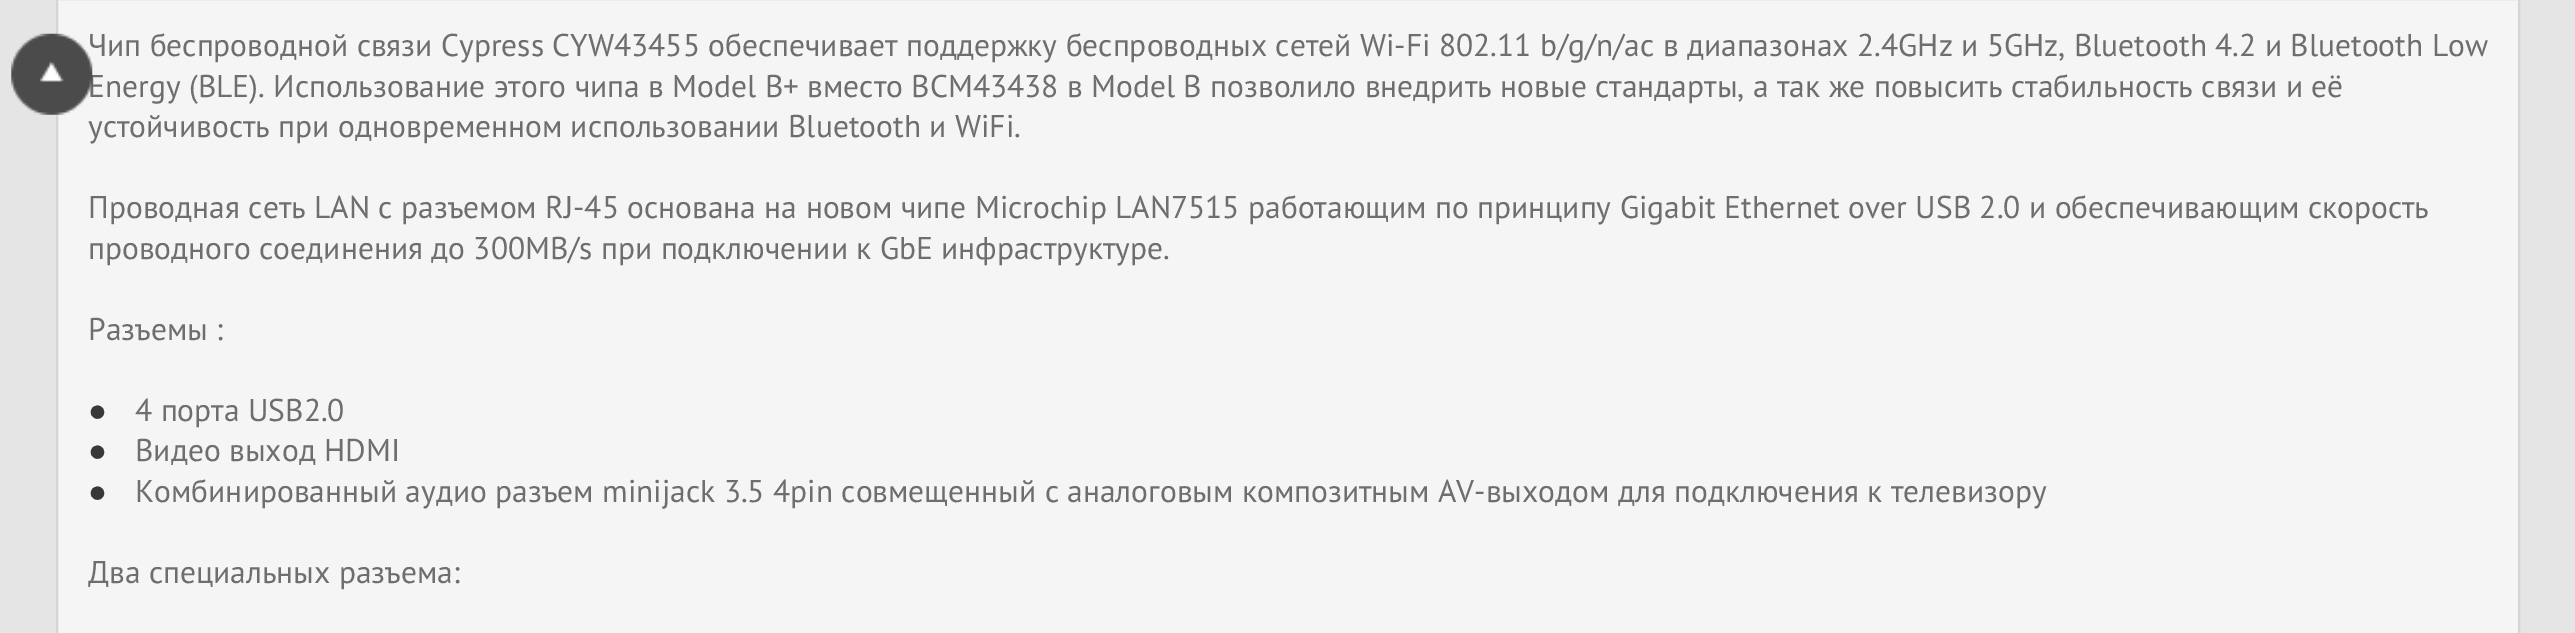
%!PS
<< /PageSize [2575 633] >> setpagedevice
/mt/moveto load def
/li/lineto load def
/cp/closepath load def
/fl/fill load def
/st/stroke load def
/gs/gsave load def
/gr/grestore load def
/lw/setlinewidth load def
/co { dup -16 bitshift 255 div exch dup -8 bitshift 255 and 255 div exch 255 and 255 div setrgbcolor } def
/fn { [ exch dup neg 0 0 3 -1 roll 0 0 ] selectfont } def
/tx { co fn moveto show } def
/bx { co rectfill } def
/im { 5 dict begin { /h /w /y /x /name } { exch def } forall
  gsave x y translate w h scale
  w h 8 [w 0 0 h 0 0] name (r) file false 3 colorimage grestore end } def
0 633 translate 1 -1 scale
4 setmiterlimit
0 0 2575 633 16#E5E5E5 bx
16#F5F5F5 co
57 -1 mt 2519 -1 li 2519 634 li 57 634 li cp gs fl gr
16#D5D5D5 co
2 lw
st
(Чип беспроводной связи Cypress CYW43455 обеспечивает поддержку беспроводных сетей Wi-Fi 802.11 b/g/n/ac в диапазонах 2.4GHz и 5GHz, Bluetooth 4.2 и Bluetooth Low) 88 56 /PTSans-Regular 31.5 16#6E6E6E tx
(Energy \(BLE\). Использование этого чипа в Model B+ вместо BCM43438 в Model B позволило внедрить новые стандарты, а так же повысить стабильность связи и её) 88 97 /PTSans-Regular 31.5 16#6E6E6E tx
(устойчивость при одновременном использовании Bluetooth и WiFi.) 88 137 /PTSans-Regular 31.5 16#6E6E6E tx
(media/1.raw) 11 33 82 82 im
(Проводная сеть LAN с разъемом RJ-45 основана на новом чипе Microchip LAN7515 работающим по принципу Gigabit Ethernet over USB 2.0 и обеспечивающим скорость) 88 218 /PTSans-Regular 31.5 16#6E6E6E tx
(проводного соединения до 300MB/s при подключении к GbE инфраструктуре.) 88 259 /PTSans-Regular 31.5 16#6E6E6E tx
(Разъемы :) 88 340 /PTSans-Regular 31.5 16#6E6E6E tx
(●) 88 421 /LiberationSans-Regular 31.5 16#383838 tx
(4 порта USB2.0) 135 421 /PTSans-Regular 31.5 16#6E6E6E tx
(●) 88 461 /LiberationSans-Regular 31.5 16#383838 tx
(Видео выход HDMI) 135 461 /PTSans-Regular 31.5 16#6E6E6E tx
(●) 88 502 /LiberationSans-Regular 31.5 16#383838 tx
(Комбинированный аудио разъем minijack 3.5 4pin совмещенный с аналоговым композитным AV-выходом для подключения к телевизору) 135 502 /PTSans-Regular 31.5 16#6E6E6E tx
(Два специальных разъема:) 88 583 /PTSans-Regular 31.5 16#6E6E6E tx
showpage
